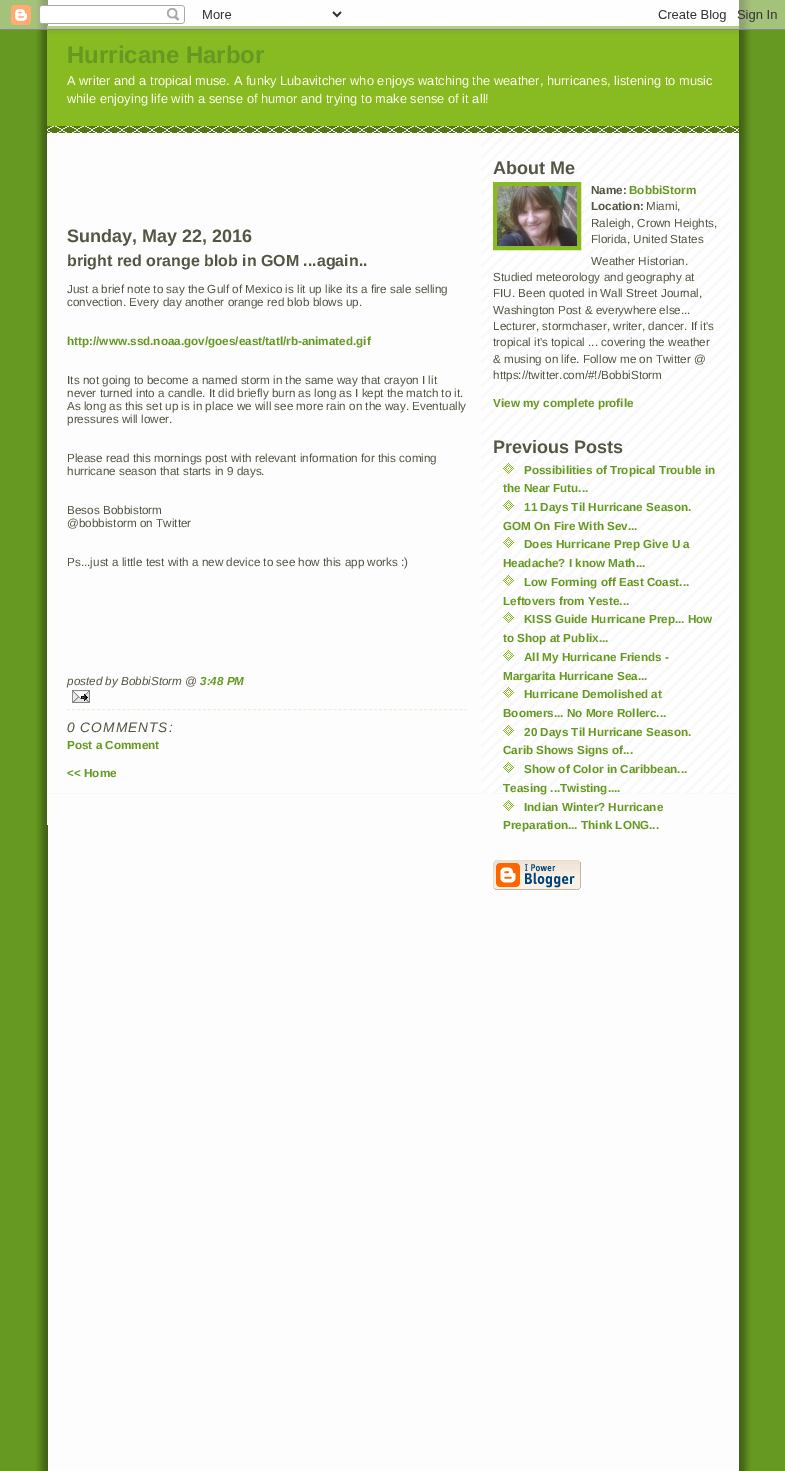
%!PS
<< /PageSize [785 1471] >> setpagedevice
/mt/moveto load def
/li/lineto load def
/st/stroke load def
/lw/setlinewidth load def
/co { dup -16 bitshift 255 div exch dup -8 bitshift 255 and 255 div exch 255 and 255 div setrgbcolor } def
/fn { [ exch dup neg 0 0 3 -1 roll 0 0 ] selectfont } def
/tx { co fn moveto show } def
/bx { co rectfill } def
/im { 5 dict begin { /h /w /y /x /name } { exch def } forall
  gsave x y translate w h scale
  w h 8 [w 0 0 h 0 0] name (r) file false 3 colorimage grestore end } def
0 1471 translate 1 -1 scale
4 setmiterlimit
0 0 785 1471 16#669922 bx
(media/1.raw) 36 0 715 1471 im
(media/5.raw) 47 26 692 8 im
(media/2.raw) 0 0 785 30 im
47 133 1 660 16#FFFFFF bx
(media/3.raw) 481 133 250 660 im
47 34 692 92 16#88BB22 bx
(media/4.raw) 47 126 692 7 im
(media/6.raw) 72 690 18 13 im
16#EEEEDD co
[3 2.03] 0 setdash
67 709.5 mt 467 709.5 li st
16#88BB22 co
4 lw
[] 0 setdash
495 184 84 64 rectstroke
(media/7.raw) 497 186 80 60 im
(media/8.raw) 503 463 11 11 im
(media/9.raw) 503 500 11 11 im
(media/10.raw) 503 537 11 11 im
(media/11.raw) 503 575 11 11 im
(media/12.raw) 503 612 11 11 im
(media/13.raw) 503 650 11 11 im
(media/14.raw) 503 687 11 11 im
(media/15.raw) 503 725 11 11 im
(media/16.raw) 503 762 11 11 im
(media/17.raw) 503 800 11 11 im
(media/18.raw) 493 860 88 30 im
47 794 1 31 16#FDFDFD bx
47 793 692 1 16#F9F9F9 bx
(Hurricane Harbor) 67 63 /LiberationSans-Bold 24 16#669922 tx
(A writer and a tropical muse. A funky Lubavitcher who enjoys watching the weather, hurricanes, listening to music) 67 85 /LiberationSans-Regular 12.87 16#FFFFEE tx
(while enjoying life with a sense of humor and trying to make sense of it all!) 67 103 /LiberationSans-Regular 12.87 16#FFFFEE tx
(Sunday, May 22, 2016) 67 242 /LiberationSans-Bold 18 16#555544 tx
(bright red orange blob in GOM ...again..) 67 266 /LiberationSans-Bold 16 16#555544 tx
(Just a brief note to say the Gulf of Mexico is lit up like its a fire sale selling) 67 293 /LiberationSans-Regular 11.7 16#555544 tx
(convection. Every day another orange red blob blows up.) 67 306 /LiberationSans-Regular 11.7 16#555544 tx
(http://www.ssd.noaa.gov/goes/east/tatl/rb-animated.gif) 67 345 /LiberationSans-Bold 11.7 16#669922 tx
(Its not going to become a named storm in the same way that crayon I lit) 67 384 /LiberationSans-Regular 11.7 16#555544 tx
(never turned into a candle. It did briefly burn as long as I kept the match to it.) 67 397 /LiberationSans-Regular 11.7 16#555544 tx
(As long as this set up is in place we will see more rain on the way. Eventually) 67 410 /LiberationSans-Regular 11.7 16#555544 tx
(pressures will lower.) 67 423 /LiberationSans-Regular 11.7 16#555544 tx
(Please read this mornings post with relevant information for this coming) 67 462 /LiberationSans-Regular 11.7 16#555544 tx
(hurricane season that starts in 9 days.) 67 475 /LiberationSans-Regular 11.7 16#555544 tx
(Besos Bobbistorm) 67 514 /LiberationSans-Regular 11.7 16#555544 tx
(@bobbistorm on Twitter) 67 527 /LiberationSans-Regular 11.7 16#555544 tx
(Ps...just a little test with a new device to see how this app works :\)) 67 566 /LiberationSans-Regular 11.7 16#555544 tx
(posted by BobbiStorm @) 67 685 /LiberationSans-Italic 11.7 16#555544 tx
(3:48 PM) 200 685 /LiberationSans-BoldItalic 11.7 16#669922 tx
/LiberationSans-Italic 13.75 fn
16#555544 co
67 732 mt 1 0 (0 COMMENTS:) ashow
(Post a Comment) 67 749 /LiberationSans-Bold 11.7 16#669922 tx
(<< Home) 67 777 /LiberationSans-Bold 11.7 16#669922 tx
(About Me) 493 174 /LiberationSans-Bold 18 16#555544 tx
(Name:) 591 194 /LiberationSans-Bold 11.7 16#555544 tx
(BobbiStorm) 629 194 /LiberationSans-Bold 11.7 16#669922 tx
(Location:) 591 210 /LiberationSans-Bold 11.7 16#555544 tx
(Miami,) 646 210 /LiberationSans-Regular 11.7 16#555544 tx
(Raleigh, Crown Heights,) 591 227 /LiberationSans-Regular 11.7 16#555544 tx
(Florida, United States) 591 243 /LiberationSans-Regular 11.7 16#555544 tx
(Weather Historian.) 591 265 /LiberationSans-Regular 11.7 16#555544 tx
(Studied meteorology and geography at) 493 281 /LiberationSans-Regular 11.7 16#555544 tx
(FIU. Been quoted in Wall Street Journal,) 493 297 /LiberationSans-Regular 11.7 16#555544 tx
(Washington Post & everywhere else...) 493 314 /LiberationSans-Regular 11.7 16#555544 tx
(Lecturer, stormchaser, writer, dancer. If it's) 493 330 /LiberationSans-Regular 11.7 16#555544 tx
(tropical it's topical ... covering the weather) 493 346 /LiberationSans-Regular 11.7 16#555544 tx
(& musing on life. Follow me on Twitter @) 493 363 /LiberationSans-Regular 11.7 16#555544 tx
(https://twitter.com/#!/BobbiStorm) 493 379 /LiberationSans-Regular 11.7 16#555544 tx
(View my complete profile) 493 407 /LiberationSans-Bold 11.7 16#669922 tx
(Previous Posts) 493 453 /LiberationSans-Bold 18 16#555544 tx
(Possibilities of Tropical Trouble in) 524 474 /LiberationSans-Bold 11.7 16#669922 tx
(the Near Futu...) 503 492 /LiberationSans-Bold 11.7 16#669922 tx
(11 Days Til Hurricane Season.) 524 511 /LiberationSans-Bold 11.7 16#669922 tx
(GOM On Fire With Sev...) 503 530 /LiberationSans-Bold 11.7 16#669922 tx
(Does Hurricane Prep Give U a) 524 548 /LiberationSans-Bold 11.7 16#669922 tx
(Headache? I know Math...) 503 567 /LiberationSans-Bold 11.7 16#669922 tx
(Low Forming off East Coast...) 524 586 /LiberationSans-Bold 11.7 16#669922 tx
(Leftovers from Yeste...) 503 605 /LiberationSans-Bold 11.7 16#669922 tx
(KISS Guide Hurricane Prep... How) 524 623 /LiberationSans-Bold 11.7 16#669922 tx
(to Shop at Publix...) 503 642 /LiberationSans-Bold 11.7 16#669922 tx
(All My Hurricane Friends -) 524 661 /LiberationSans-Bold 11.7 16#669922 tx
(Margarita Hurricane Sea...) 503 680 /LiberationSans-Bold 11.7 16#669922 tx
(Hurricane Demolished at) 524 698 /LiberationSans-Bold 11.7 16#669922 tx
(Boomers... No More Rollerc...) 503 717 /LiberationSans-Bold 11.7 16#669922 tx
(20 Days Til Hurricane Season.) 524 736 /LiberationSans-Bold 11.7 16#669922 tx
(Carib Shows Signs of...) 503 754 /LiberationSans-Bold 11.7 16#669922 tx
(Show of Color in Caribbean...) 524 773 /LiberationSans-Bold 11.7 16#669922 tx
(Teasing ...Twisting....) 503 792 /LiberationSans-Bold 11.7 16#669922 tx
(Indian Winter? Hurricane) 524 811 /LiberationSans-Bold 11.7 16#669922 tx
(Preparation... Think LONG...) 503 829 /LiberationSans-Bold 11.7 16#669922 tx
showpage
